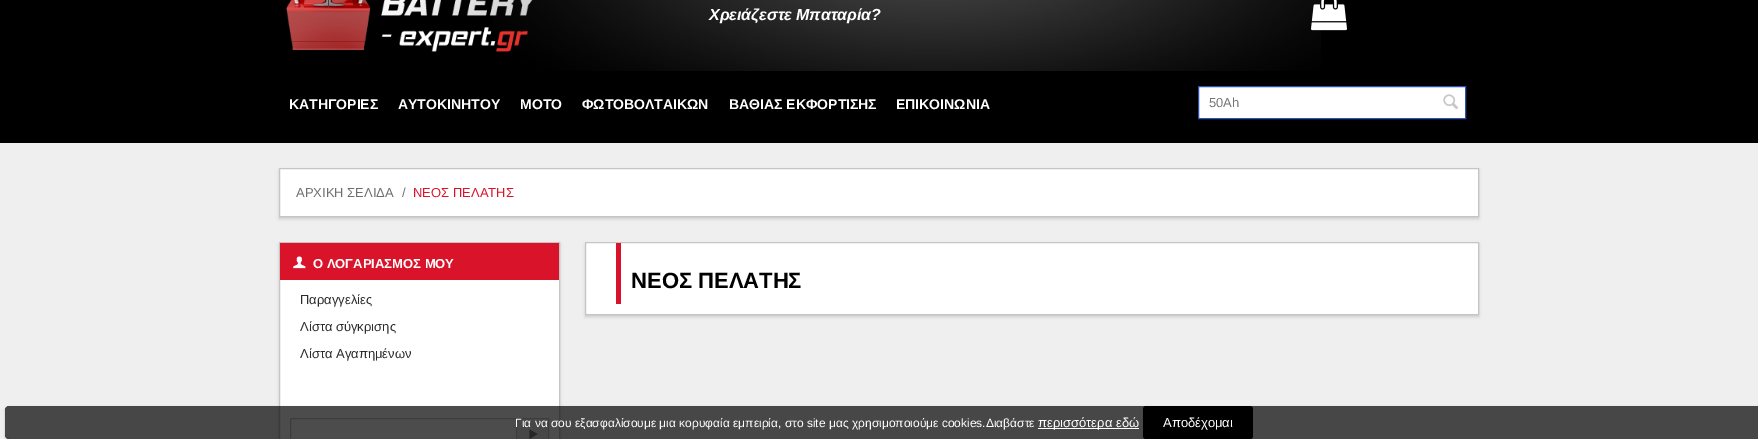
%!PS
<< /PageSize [1758 439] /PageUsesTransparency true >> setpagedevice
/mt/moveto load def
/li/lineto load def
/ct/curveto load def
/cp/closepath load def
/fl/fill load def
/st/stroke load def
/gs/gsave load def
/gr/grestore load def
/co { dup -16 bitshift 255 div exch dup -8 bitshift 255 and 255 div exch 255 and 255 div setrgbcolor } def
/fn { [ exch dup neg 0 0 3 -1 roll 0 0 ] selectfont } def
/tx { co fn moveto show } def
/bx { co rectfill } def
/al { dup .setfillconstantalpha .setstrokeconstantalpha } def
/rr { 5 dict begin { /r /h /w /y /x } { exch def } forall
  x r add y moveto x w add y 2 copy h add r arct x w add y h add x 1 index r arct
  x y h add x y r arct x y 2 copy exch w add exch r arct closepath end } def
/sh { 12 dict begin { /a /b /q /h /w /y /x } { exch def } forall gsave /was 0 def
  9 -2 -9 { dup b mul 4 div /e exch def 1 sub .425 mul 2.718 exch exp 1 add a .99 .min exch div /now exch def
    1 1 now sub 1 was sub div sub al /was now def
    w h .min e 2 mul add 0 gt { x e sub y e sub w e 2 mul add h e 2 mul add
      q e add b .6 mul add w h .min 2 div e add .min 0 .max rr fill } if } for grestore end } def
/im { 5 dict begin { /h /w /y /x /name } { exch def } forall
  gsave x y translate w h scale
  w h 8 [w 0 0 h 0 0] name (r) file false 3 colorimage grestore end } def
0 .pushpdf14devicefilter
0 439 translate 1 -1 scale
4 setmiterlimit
0 0 1758 439 16#000000 bx
(media/1.raw) 506 0 815 71 im
(media/2.raw) 286 0 247 52 im
(media/3.raw) 1311 0 36 31 im
16#FFFFFF co
1198.5 86.5 mt 1465.5 86.5 li 1465.5 118.5 li 1198.5 118.5 li cp gs fl gr
16#2C53AC co
st
(media/4.raw) 1443 94 16 16 im
0 143 1758 296 16#EFEFEF bx
16#CCCCCC co
279 170 1200 49 0 1.5 1 sh
16#FFFFFF co
279.5 168.5 mt 1478.5 168.5 li 1478.5 216.5 li 279.5 216.5 li cp gs fl gr
16#C5C5C5 co
st
16#CCCCCC co
279 244 281 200 0 1.5 1 sh
280 280 279 159 16#FFFFFF bx
16#C5C5C5 co
279.5 242.5 280 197 rectstroke
280 243 279 37 16#D9132A bx
(media/5.raw) 293 256 13 13 im
16#C8C8C8 co
290.5 418.5 258 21 rectstroke
517 419 31 20 16#EEEEEE bx
516 419 1 20 16#CDCDCD bx
16#808080 co
529.5 429.5 mt 537.5 434 li 529.5 439 li cp fl
16#CCCCCC co
585 244 894 73 0 1.5 1 sh
16#FFFFFF co
585.5 242.5 mt 1478.5 242.5 li 1478.5 314.5 li 585.5 314.5 li cp gs fl gr
16#C5C5C5 co
st
616 243 5 61 16#D9132A bx
gs
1 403 mt 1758 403 li 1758 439 li 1 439 li cp 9 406 mt 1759 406 li 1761 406 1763 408 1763 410 ct 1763 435 li 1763 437 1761 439 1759 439 ct 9 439 li 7 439 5 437 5 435 ct 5 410 li 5 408 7 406 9 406 ct cp eoclip newpath
16#000000 co
5 407 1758 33 4 1 .2 sh
gr
0.7 al
16#000000 co
5 406 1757 33 4 rr fl
1 al
1038 428 101 1 16#FFFFFF bx
16#000000 co
1143 406 110 33 3 rr fl
(Χρειάζεστε Μπαταρία?) 709 20 /LiberationSans-BoldItalic 16 16#FFFFFF tx
(ΚΑΤΗΓΟΡΙΕΣ) 289 109 /LiberationSans-Bold 14 16#FFFFFF tx
(ΑΥΤΟΚΙΝΗΤΟΥ) 398 109 /LiberationSans-Bold 14 16#FFFFFF tx
(ΜΟΤΟ) 520 109 /LiberationSans-Bold 14 16#FFFFFF tx
(ΦΩΤΟΒΟΛΤΑΙΚΩΝ) 582 109 /LiberationSans-Bold 14 16#FFFFFF tx
(ΒΑΘΙΑΣ ΕΚΦΟΡΤΙΣHΣ) 729 109 /LiberationSans-Bold 14 16#FFFFFF tx
(ΕΠΙΚΟΙΝΩΝΙΑ) 896 109 /LiberationSans-Bold 14 16#FFFFFF tx
(50Ah) 1209 107 /LiberationSans-Regular 13 16#757575 tx
(ΑΡΧΙΚΗ ΣΕΛΙΔΑ) 296 197 /LiberationSans-Regular 13 16#6F6F6F tx
(/) 402 197 /LiberationSans-Regular 13 16#6F6F6F tx
(ΝΕΟΣ ΠΕΛΑΤΗΣ) 413 197 /LiberationSans-Regular 13 16#D9132A tx
(Ο ΛΟΓΑΡΙΑΣΜΟΣ ΜΟΥ) 313 268 /LiberationSans-Bold 13 16#FFFFFF tx
(Παραγγελίες) 300 304 /LiberationSans-Regular 13 16#2C2C2C tx
(Λίστα σύγκρισης) 300 331 /LiberationSans-Regular 13 16#2C2C2C tx
(Λίστα Αγαπημένων) 300 358 /LiberationSans-Regular 13 16#2C2C2C tx
(ΝΕΟΣ ΠΕΛΑΤΗΣ) 631 288 /LiberationSans-Bold 22 16#000000 tx
(Για να σου εξασφαλίσουμε μια κορυφαία εμπειρία, στο site μας χρησιμοποιούμε cookies.Διαβάστε) 515 427 /LiberationSans-Regular 12 16#FFFFFF tx
(περισσότερα εδώ) 1038 427 /LiberationSans-Regular 13 16#FFFFFF tx
(Αποδέχομαι) 1163 427 /LiberationSans-Regular 13 16#FFFFFF tx
.poppdf14devicefilter showpage
